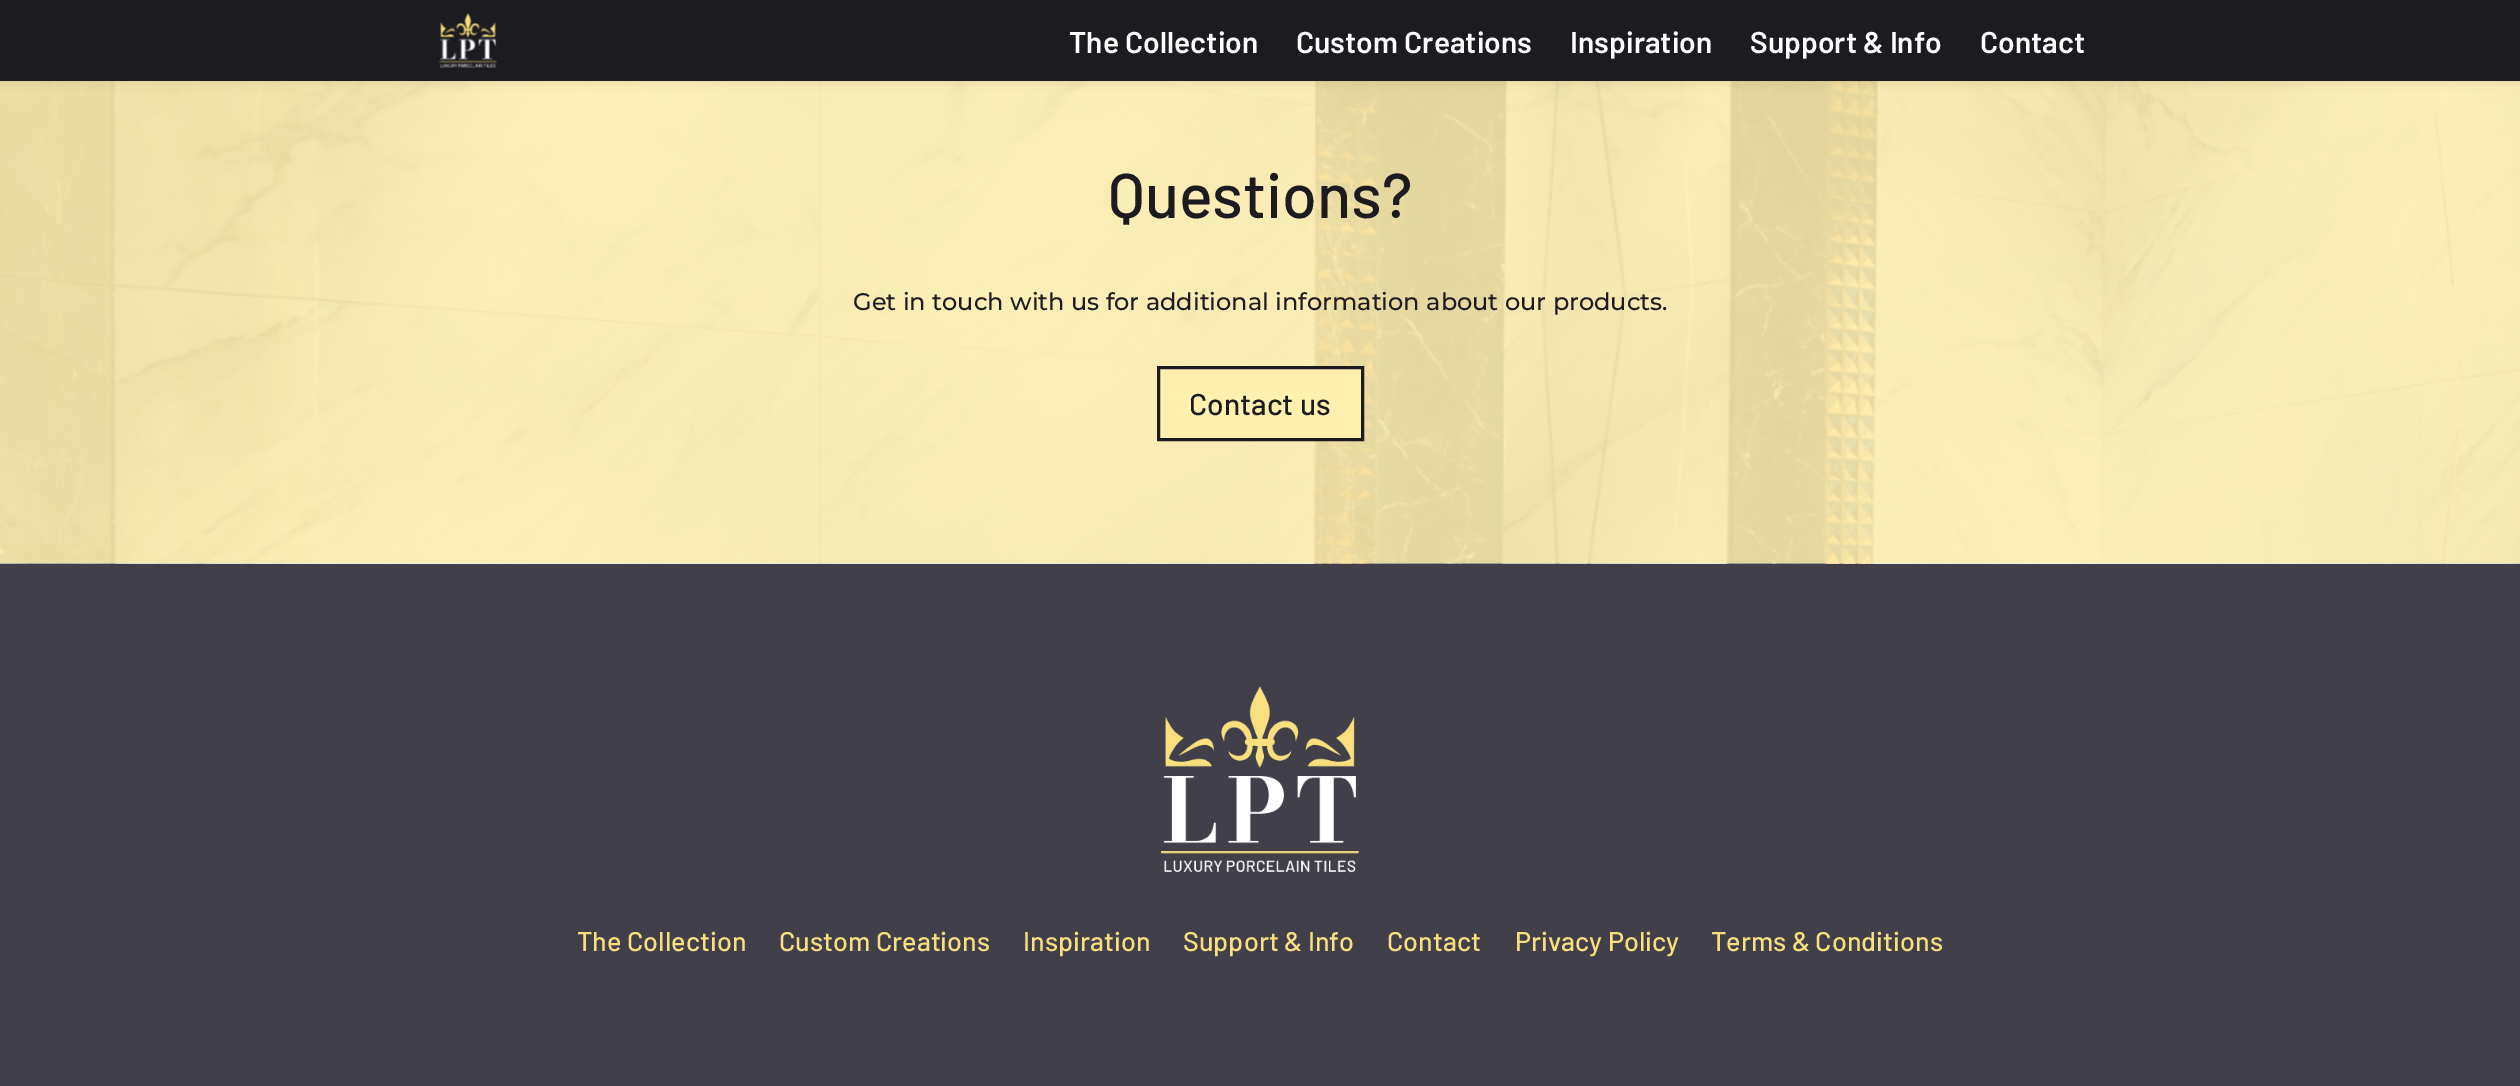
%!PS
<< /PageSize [2520 1086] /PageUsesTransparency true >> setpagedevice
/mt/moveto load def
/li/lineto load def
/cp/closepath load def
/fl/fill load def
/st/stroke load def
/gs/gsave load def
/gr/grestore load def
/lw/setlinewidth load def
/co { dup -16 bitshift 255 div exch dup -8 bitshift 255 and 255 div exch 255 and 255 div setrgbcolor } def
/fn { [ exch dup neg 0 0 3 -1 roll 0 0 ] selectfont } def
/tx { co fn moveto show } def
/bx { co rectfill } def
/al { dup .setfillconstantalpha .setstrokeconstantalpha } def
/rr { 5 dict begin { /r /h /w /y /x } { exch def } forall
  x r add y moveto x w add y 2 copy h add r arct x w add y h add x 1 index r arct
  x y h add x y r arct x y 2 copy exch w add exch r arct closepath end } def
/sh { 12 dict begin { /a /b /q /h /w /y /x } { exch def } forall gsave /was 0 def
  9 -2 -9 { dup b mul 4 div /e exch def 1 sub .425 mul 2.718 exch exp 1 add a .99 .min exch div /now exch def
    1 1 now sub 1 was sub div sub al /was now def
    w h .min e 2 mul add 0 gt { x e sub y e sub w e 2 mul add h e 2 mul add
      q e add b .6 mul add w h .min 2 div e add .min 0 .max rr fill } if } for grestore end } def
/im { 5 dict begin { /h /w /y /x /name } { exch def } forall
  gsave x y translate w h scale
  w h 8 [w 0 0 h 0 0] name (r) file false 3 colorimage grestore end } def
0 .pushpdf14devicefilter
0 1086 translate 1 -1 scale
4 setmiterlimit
0 0 2520 1086 16#FFFFFF bx
(media/2.raw) 0 81 2520 483 im
16#000000 co
0 0 2520 81 0 5 .1 sh
0 0 2520 81 16#1C1B20 bx
(media/1.raw) 439 13 58 55 im
16#FFF0B0 co
1158.5 367.5 mt 1362.5 367.5 li 1362.5 439.5 li 1158.5 439.5 li cp gs fl gr
16#1C1B20 co
3 lw
st
0 564 2520 522 16#403F4A bx
(media/3.raw) 1161 686 198 187 im
(The Collection) 1069 53 /Barlow-SemiBold 30 16#FFFFFF tx
(Custom Creations) 1296 53 /Barlow-SemiBold 30 16#FFFFFF tx
(Inspiration) 1570 53 /Barlow-SemiBold 30 16#FFFFFF tx
(Support & Info) 1750 53 /Barlow-SemiBold 30 16#FFFFFF tx
(Contact) 1980 53 /Barlow-SemiBold 30 16#FFFFFF tx
(Questions?) 1108 218 /Barlow-Medium 63 16#1C1B20 tx
(Get in touch with us for additional information about our products.) 853 310 /Montserrat-Medium 24 16#1C1B20 tx
(Contact us) 1189 415 /Barlow-Medium 30 16#1C1B20 tx
(The Collection) 577 951 /Barlow-Medium 27 16#F8E07E tx
(Custom Creations) 779 951 /Barlow-Medium 27 16#F8E07E tx
(Inspiration) 1023 951 /Barlow-Medium 27 16#F8E07E tx
(Support & Info) 1183 951 /Barlow-Medium 27 16#F8E07E tx
(Contact) 1387 951 /Barlow-Medium 27 16#F8E07E tx
(Privacy Policy) 1515 951 /Barlow-Medium 27 16#F8E07E tx
(Terms & Conditions) 1711 951 /Barlow-Medium 27 16#F8E07E tx
.poppdf14devicefilter showpage
